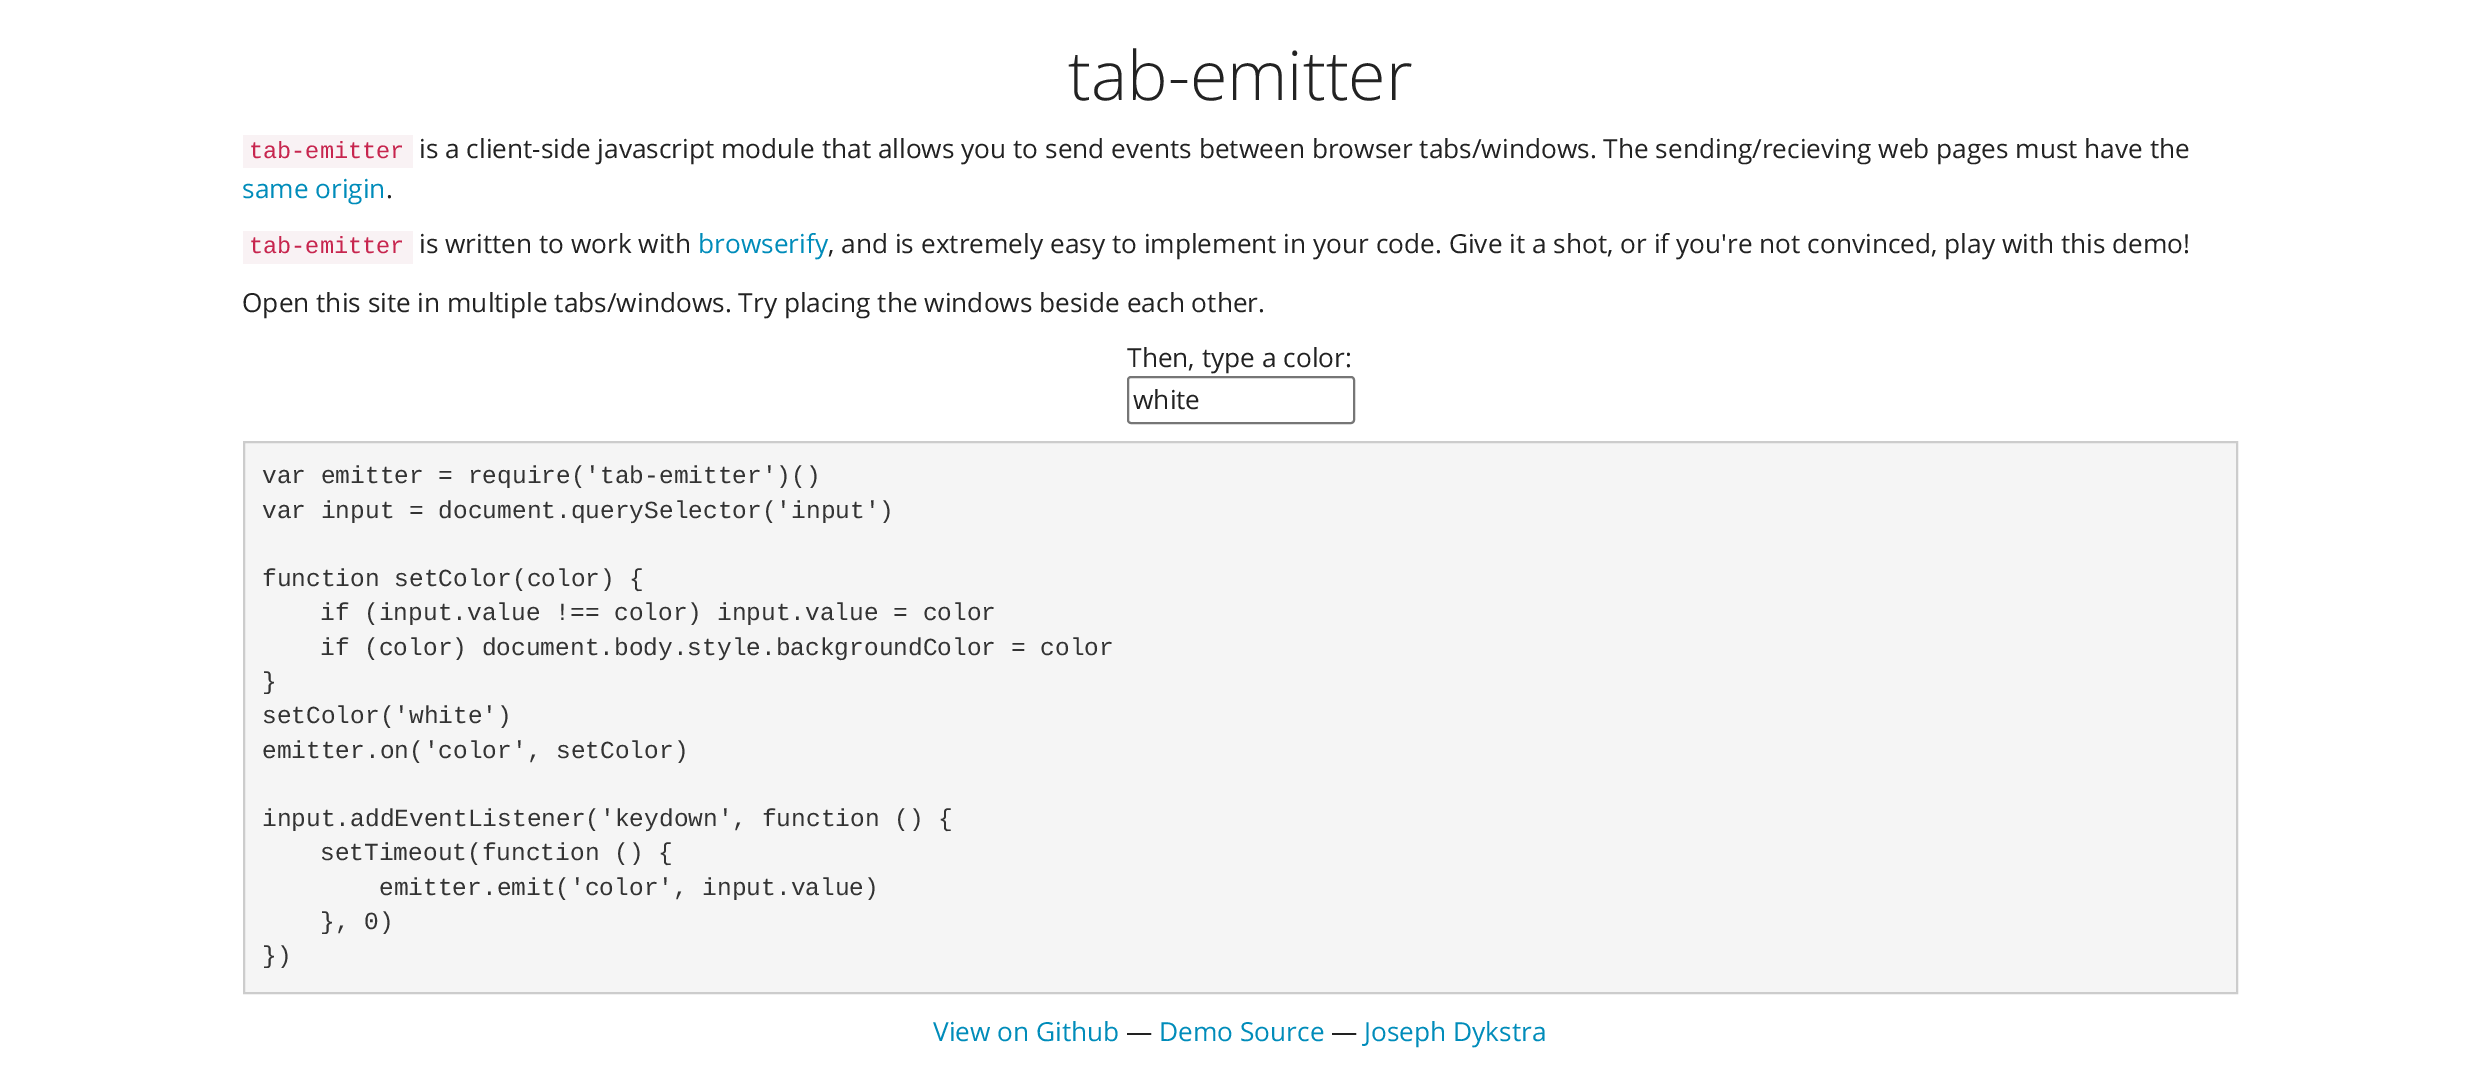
%!PS
<< /PageSize [2479 1073] >> setpagedevice
/mt/moveto load def
/li/lineto load def
/cp/closepath load def
/fl/fill load def
/st/stroke load def
/gs/gsave load def
/gr/grestore load def
/lw/setlinewidth load def
/co { dup -16 bitshift 255 div exch dup -8 bitshift 255 and 255 div exch 255 and 255 div setrgbcolor } def
/fn { [ exch dup neg 0 0 3 -1 roll 0 0 ] selectfont } def
/tx { co fn moveto show } def
/bx { co rectfill } def
/rr { 5 dict begin { /r /h /w /y /x } { exch def } forall
  x r add y moveto x w add y 2 copy h add r arct x w add y h add x 1 index r arct
  x y h add x y r arct x y 2 copy exch w add exch r arct closepath end } def
0 1073 translate 1 -1 scale
4 setmiterlimit
0 0 2479 1073 16#FFFFFF bx
243 135 170 33 16#F9F2F4 bx
243 231 170 33 16#F9F2F4 bx
16#767676 co
2 lw
1128 377 226 46 3 rr st
16#F5F5F5 co
244 442 mt 2237 442 li 2237 993 li 244 993 li cp gs fl gr
16#CCCCCC co
st
(tab-emitter) 1068 100 /OpenSans-Light 68.25 16#222222 tx
(tab-emitter) 249 158 /LiberationMono-Regular 23.5 16#C7254E tx
(is a client-side javascript module that allows you to send events between browser tabs/windows. The sending/recieving web pages must have the) 419 158 /OpenSans-Regular 26.25 16#222222 tx
(same origin) 242 198 /OpenSans-Regular 26.25 16#008CBA tx
(.) 386 198 /OpenSans-Regular 26.25 16#222222 tx
(tab-emitter) 249 253 /LiberationMono-Regular 23.5 16#C7254E tx
(is written to work with) 419 253 /OpenSans-Regular 26.25 16#222222 tx
(browserify) 698 253 /OpenSans-Regular 26.25 16#008CBA tx
(, and is extremely easy to implement in your code. Give it a shot, or if you're not convinced, play with this demo!) 828 253 /OpenSans-Regular 26.25 16#222222 tx
(Open this site in multiple tabs/windows. Try placing the windows beside each other.) 242 312 /OpenSans-Regular 26.25 16#222222 tx
(Then, type a color:) 1127 367 /OpenSans-Regular 26.25 16#222222 tx
(white) 1133 409 /OpenSans-Regular 26.25 16#222222 tx
(var emitter = require\('tab-emitter'\)\(\)) 262 483 /LiberationMono-Regular 24.5 16#333333 tx
(var input = document.querySelector\('input'\)) 262 518 /LiberationMono-Regular 24.5 16#333333 tx
(function setColor\(color\) {) 262 586 /LiberationMono-Regular 24.5 16#333333 tx
(if \(input.value !== color\) input.value = color) 320 620 /LiberationMono-Regular 24.5 16#333333 tx
(if \(color\) document.body.style.backgroundColor = color) 320 655 /LiberationMono-Regular 24.5 16#333333 tx
(}) 262 689 /LiberationMono-Regular 24.5 16#333333 tx
(setColor\('white'\)) 262 723 /LiberationMono-Regular 24.5 16#333333 tx
(emitter.on\('color', setColor\)) 262 758 /LiberationMono-Regular 24.5 16#333333 tx
(input.addEventListener\('keydown', function \(\) {) 262 826 /LiberationMono-Regular 24.5 16#333333 tx
(setTimeout\(function \(\) {) 320 860 /LiberationMono-Regular 24.5 16#333333 tx
(emitter.emit\('color', input.value\)) 379 895 /LiberationMono-Regular 24.5 16#333333 tx
(}, 0\)) 320 929 /LiberationMono-Regular 24.5 16#333333 tx
(}\)) 262 963 /LiberationMono-Regular 24.5 16#333333 tx
(View on Github) 933 1041 /OpenSans-Regular 26.25 16#008CBA tx
(—) 1126 1041 /OpenSans-Regular 26.25 16#222222 tx
(Demo Source) 1159 1041 /OpenSans-Regular 26.25 16#008CBA tx
(—) 1331 1041 /OpenSans-Regular 26.25 16#222222 tx
(Joseph Dykstra) 1364 1041 /OpenSans-Regular 26.25 16#008CBA tx
showpage
